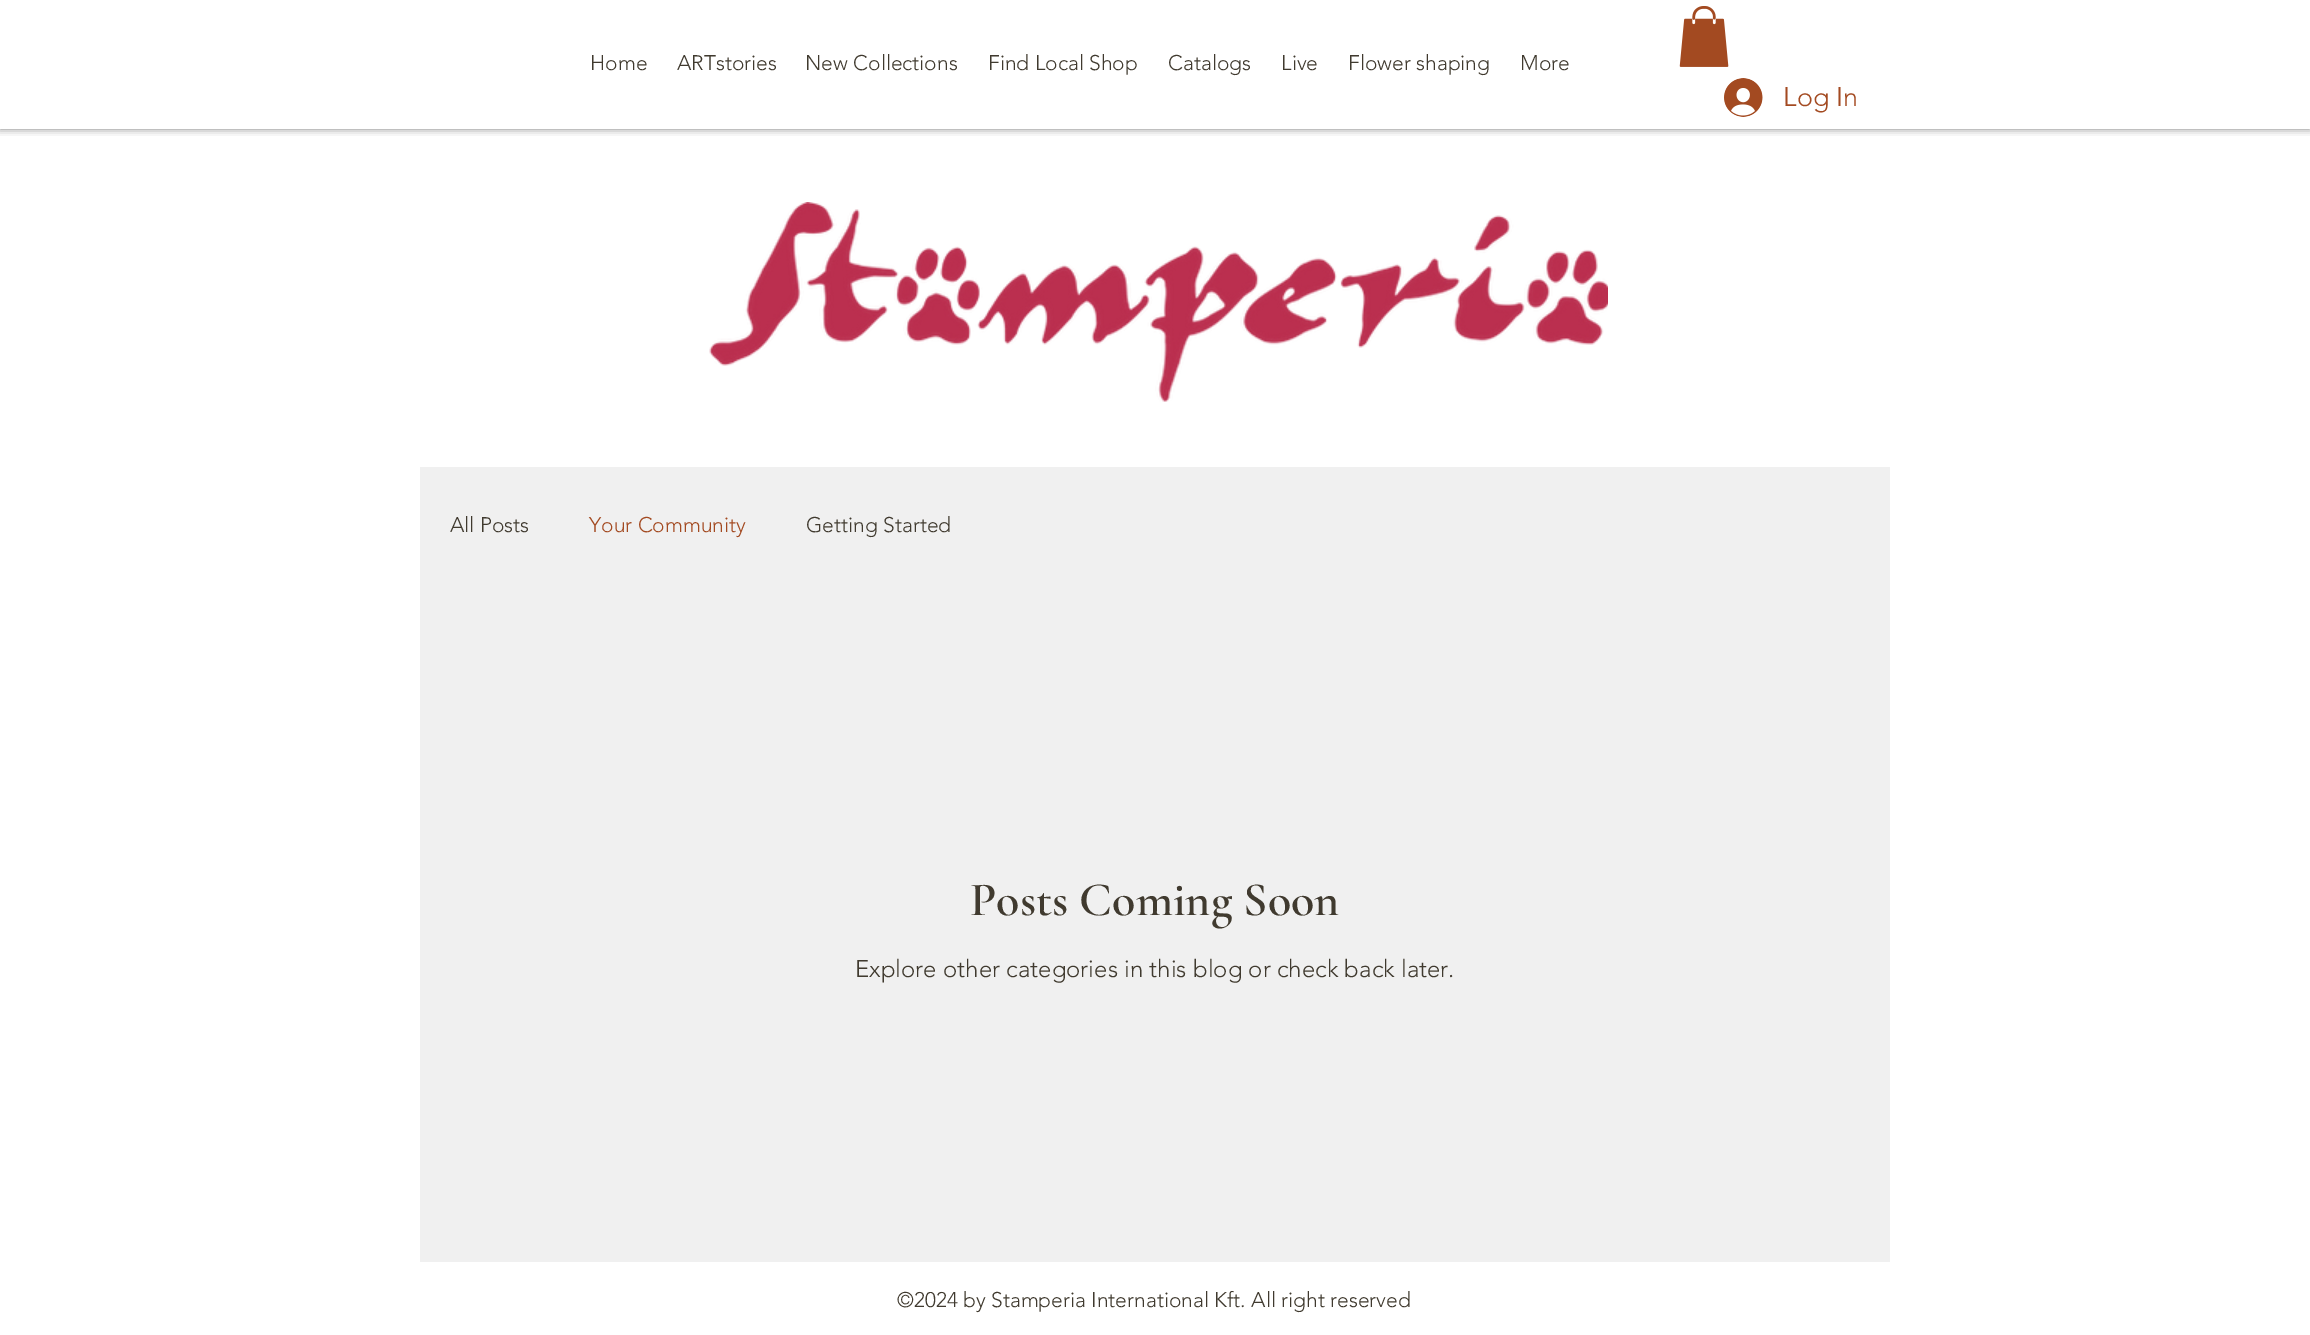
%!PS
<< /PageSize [2310 1335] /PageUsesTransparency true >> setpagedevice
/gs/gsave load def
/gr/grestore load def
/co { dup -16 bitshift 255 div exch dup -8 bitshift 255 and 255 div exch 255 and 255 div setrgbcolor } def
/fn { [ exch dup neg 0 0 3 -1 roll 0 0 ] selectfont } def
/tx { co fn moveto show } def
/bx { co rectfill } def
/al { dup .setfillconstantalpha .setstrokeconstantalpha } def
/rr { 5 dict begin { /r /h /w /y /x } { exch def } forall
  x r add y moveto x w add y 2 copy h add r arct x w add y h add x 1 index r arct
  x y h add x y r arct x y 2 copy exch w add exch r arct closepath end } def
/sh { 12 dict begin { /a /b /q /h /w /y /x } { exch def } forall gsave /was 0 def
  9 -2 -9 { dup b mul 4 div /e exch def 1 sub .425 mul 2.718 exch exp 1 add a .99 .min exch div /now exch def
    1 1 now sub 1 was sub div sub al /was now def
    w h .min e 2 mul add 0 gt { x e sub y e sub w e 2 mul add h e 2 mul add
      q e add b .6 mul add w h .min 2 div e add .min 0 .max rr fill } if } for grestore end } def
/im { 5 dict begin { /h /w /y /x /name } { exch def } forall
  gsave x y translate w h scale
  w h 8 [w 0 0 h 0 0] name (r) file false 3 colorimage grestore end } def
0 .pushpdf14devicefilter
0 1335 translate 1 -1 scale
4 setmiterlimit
0 0 2310 1335 16#FFFFFF bx
gs
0 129 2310 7 rectclip
16#000000 co
0 -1 2310 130 0 4 .5 sh
gr
(media/1.raw) 1679 6 50 61 im
(media/2.raw) 1724 78 39 39 im
(media/3.raw) 709 202 899 200 im
420 467 1470 795 16#F0F0F0 bx
(Home) 590 70 /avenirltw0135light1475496-Light 21 16#403A2F tx
(ARTstories) 677 70 /avenirltw0135light1475496-Light 21 16#403A2F tx
(New Collections) 805 70 /avenirltw0135light1475496-Light 21 16#403A2F tx
(Find Local Shop) 988 70 /avenirltw0135light1475496-Light 21 16#403A2F tx
(Catalogs) 1168 70 /avenirltw0135light1475496-Light 21 16#403A2F tx
(Live) 1281 70 /avenirltw0135light1475496-Light 21 16#403A2F tx
(Flower shaping) 1348 70 /avenirltw0135light1475496-Light 21 16#403A2F tx
(More) 1520 70 /avenirltw0135light1475496-Light 21 16#403A2F tx
(Log In) 1783 106 /avenirltw0135light1475496-Light 27 16#A34A21 tx
(All Posts) 450 532 /avenirltw0135light1475496-Light 21 16#403A2F tx
(Your Community) 589 532 /avenirltw0135light1475496-Light 21 16#A34A21 tx
(Getting Started) 806 532 /avenirltw0135light1475496-Light 21 16#403A2F tx
(Posts Coming Soon) 970 915 /CormorantGaramond-SemiBold 48 16#403A2F tx
(Explore other categories in this blog or check back later.) 855 977 /avenirltw0135light1475496-Light 24 16#403A2F tx
(©2024 by Stamperia International Kft. All right reserved) 897 1307 /avenirltw0135light1475496-Light 21 16#403A2F tx
.poppdf14devicefilter showpage
